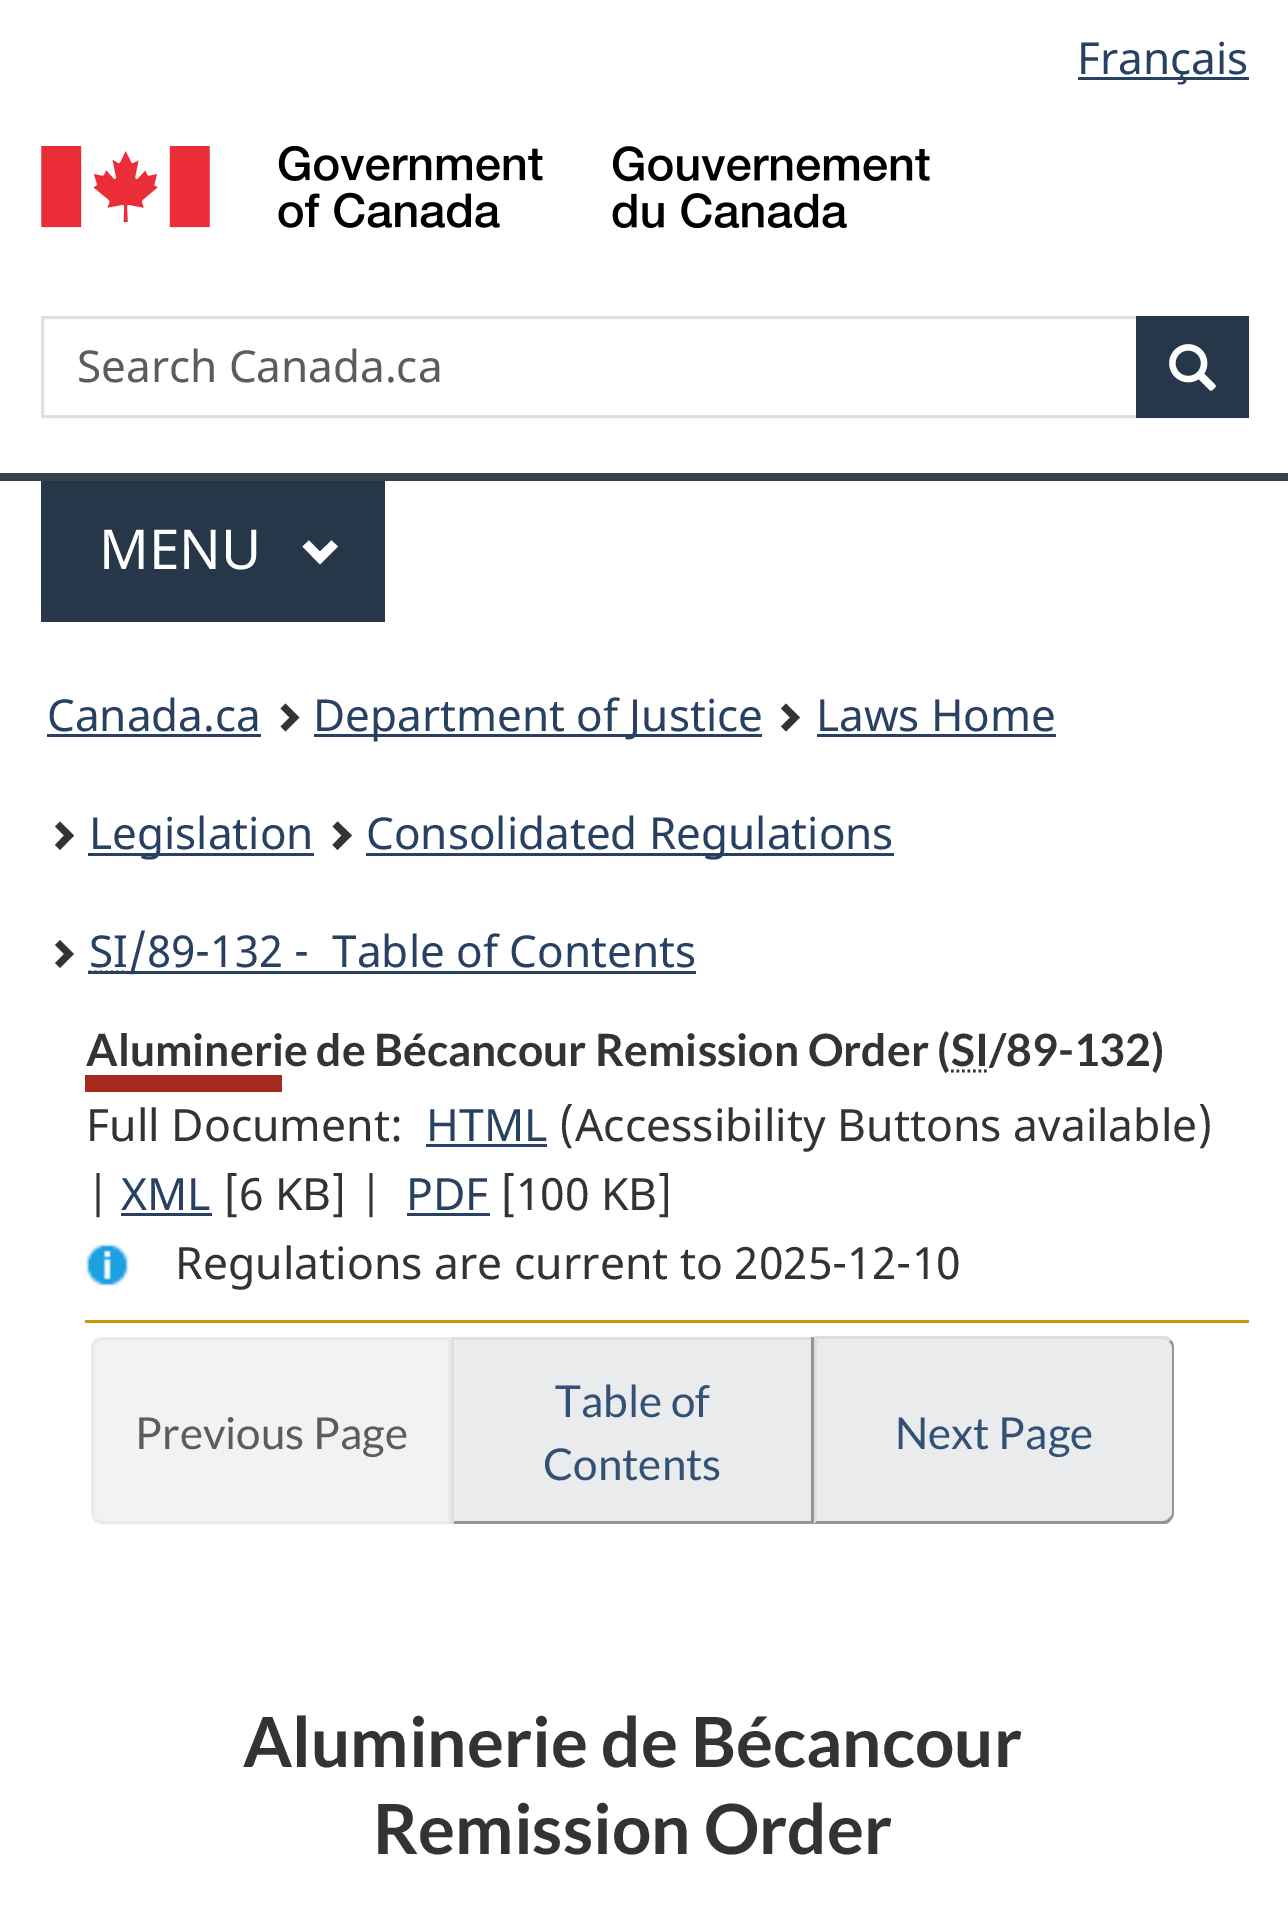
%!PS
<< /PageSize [1288 1915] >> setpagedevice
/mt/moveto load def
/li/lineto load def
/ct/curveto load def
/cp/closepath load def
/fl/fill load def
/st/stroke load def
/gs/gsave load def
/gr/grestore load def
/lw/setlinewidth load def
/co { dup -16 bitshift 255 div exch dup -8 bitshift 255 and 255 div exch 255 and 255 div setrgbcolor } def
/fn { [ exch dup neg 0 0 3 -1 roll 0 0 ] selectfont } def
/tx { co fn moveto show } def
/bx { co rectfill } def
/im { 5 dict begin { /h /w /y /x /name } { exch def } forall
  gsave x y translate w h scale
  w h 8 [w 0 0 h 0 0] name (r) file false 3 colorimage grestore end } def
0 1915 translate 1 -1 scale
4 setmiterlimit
0 0 1288 1915 16#FFFFFF bx
1078 77 171 3 16#284162 bx
(media/1.raw) 41 146 889 82 im
16#E0E0E0 co
3 lw
42.5 317.5 1205 99 rectstroke
1136 316 113 102 16#26374A bx
(media/2.raw) 1169 344 47 47 im
0 473 1288 8 16#38414D bx
41 481 344 141 16#26374A bx
16#FFFFFF co
338 546.5 mt 320 564.5 li 302.5 546.5 li 309 540.5 li 320 551.5 li 331.5 540.5 li cp fl
47 734 214 3 16#284162 bx
16#333333 co
299.5 717.5 mt 285.5 731.5 li 280.5 726.5 li 289.5 717.5 li 280.5 708.5 li 285.5 703.5 li cp fl
314 734 448 3 16#284162 bx
16#333333 co
800 717.5 mt 786 731.5 li 781 726.5 li 790 717.5 li 781 708.5 li 786 703.5 li cp fl
817 734 239 3 16#284162 bx
16#333333 co
74 835.5 mt 60 850 li 55 845 li 64 835.5 li 55 826.5 li 60 821.5 li cp fl
88 853 226 3 16#284162 bx
16#333333 co
352 835.5 mt 337.5 850 li 332.5 845 li 341.5 835.5 li 332.5 826.5 li 337.5 821.5 li cp fl
366 853 528 3 16#284162 bx
16#333333 co
74 954 mt 60 968 li 55 963 li 64 954 li 55 945 li 60 940 li cp fl
16#284162 co
2.8 lw
[2.75 2.75] 0 setdash
88.5 972 mt 127.5 972 li st
88 971 608 3 16#284162 bx
85 1075 197 17 16#A62A1E bx
16#333333 co
951 1071 mt 988.5 1071 li st
426 1144 121 3 16#284162 bx
121 1213 91 3 16#284162 bx
407 1213 83 3 16#284162 bx
(media/3.raw) 85 1243 44 44 im
85 1320 1164 3 16#CC9900 bx
16#F1F2F3 co
102 1338.5 mt 449.5 1338.5 li 449.5 1522.5 li 102 1522.5 li 97 1522.5 92.5 1518 92.5 1513 ct 92.5 1348 li 92.5 1343 97 1338.5 102 1338.5 ct cp gs fl gr
16#E8EAEC co
3 lw
[] 0 setdash
st
454 1340 357 181 16#EAEBED bx
451 1337 363 3 16#DCDEE1 bx
811 1337 3 187 16#939496 bx
451 1521 363 3 16#939496 bx
451 1337 3 187 16#DCDEE1 bx
16#EAEBED co
814 1337 mt 1163 1337 li 1169 1337 1174 1342 1174 1348 ct 1174 1513 li 1174 1519 1169 1524 1163 1524 ct 814 1524 li cp fl
16#DCDEE1 co
817 1339 mt 817 1340 li 814 1336 li 1166 1336 li 1168 1337 1170 1338 1171 1340 ct 1169 1342 li 1168 1340 1165 1339 1163 1339 ct cp fl
16#939496 co
1171 1340 mt 1173 1342 1174 1345 1174 1348 ct 1174 1512 li 1174 1515 1173 1518 1171 1520 ct 1169 1518 li 1171 1517 1172 1515 1172 1512 ct 1172 1348 li 1172 1345 1171 1343 1169 1342 ct cp fl
1166 1524 mt 814 1524 li 817 1520 li 817 1521 li 1163 1521 li 1165 1521 1168 1520 1169 1518 ct 1171 1520 li 1170 1522 1168 1523 1166 1524 ct cp fl
16#DCDEE1 co
814 1524 mt 817 1520 li 817 1340 li 814 1336 li cp fl
(Français) 1077 74 /NotoSans-Regular 44 16#284162 tx
(Search Canada.ca) 77 382 /NotoSans-Regular 44 16#5C5C5C tx
(MENU) 99 569 /NotoSans-Regular 55 16#FFFFFF tx
(Canada.ca) 47 731 /NotoSans-Regular 44 16#284162 tx
(Department of Justice) 313 731 /NotoSans-Regular 44 16#284162 tx
(Laws Home) 816 731 /NotoSans-Regular 44 16#284162 tx
(Legislation) 89 849 /NotoSans-Regular 44 16#284162 tx
(Consolidated Regulations) 366 849 /NotoSans-Regular 44 16#284162 tx
(SI/89-132 -  Table of Contents) 89 967 /NotoSans-Regular 44 16#284162 tx
(Aluminerie de Bécancour Remission Order \() 86 1066 /Lato-Bold 44.5 16#333333 tx
(SI/89-132\)) 951 1066 /Lato-Bold 44.5 16#333333 tx
(Full Document:) 86 1141 /NotoSans-Regular 44.5 16#333333 tx
(HTML) 426 1141 /NotoSans-Regular 44.5 16#284162 tx
(\(Accessibility Buttons available\)) 559 1141 /NotoSans-Regular 44.5 16#333333 tx
(|) 86 1210 /NotoSans-Regular 44.5 16#333333 tx
(XML) 121 1210 /NotoSans-Regular 44.5 16#284162 tx
([6 KB] |) 223 1210 /NotoSans-Regular 44.5 16#333333 tx
(PDF) 406 1210 /NotoSans-Regular 44.5 16#284162 tx
([100 KB]) 500 1210 /NotoSans-Regular 44.5 16#333333 tx
(Regulations are current to 2025-12-10) 175 1279 /NotoSans-Regular 44.5 16#333333 tx
(Previous Page) 135 1449 /Lato-Regular 44 16#5C5C5C tx
(Table of) 555 1417 /Lato-Regular 44 16#335075 tx
(Contents) 543 1480 /Lato-Regular 44 16#335075 tx
(Next Page) 895 1449 /Lato-Regular 44 16#335075 tx
(Aluminerie de Bécancour) 243 1767 /Lato-Bold 69.25 16#333333 tx
(Remission Order) 373 1854 /Lato-Bold 69.25 16#333333 tx
showpage
